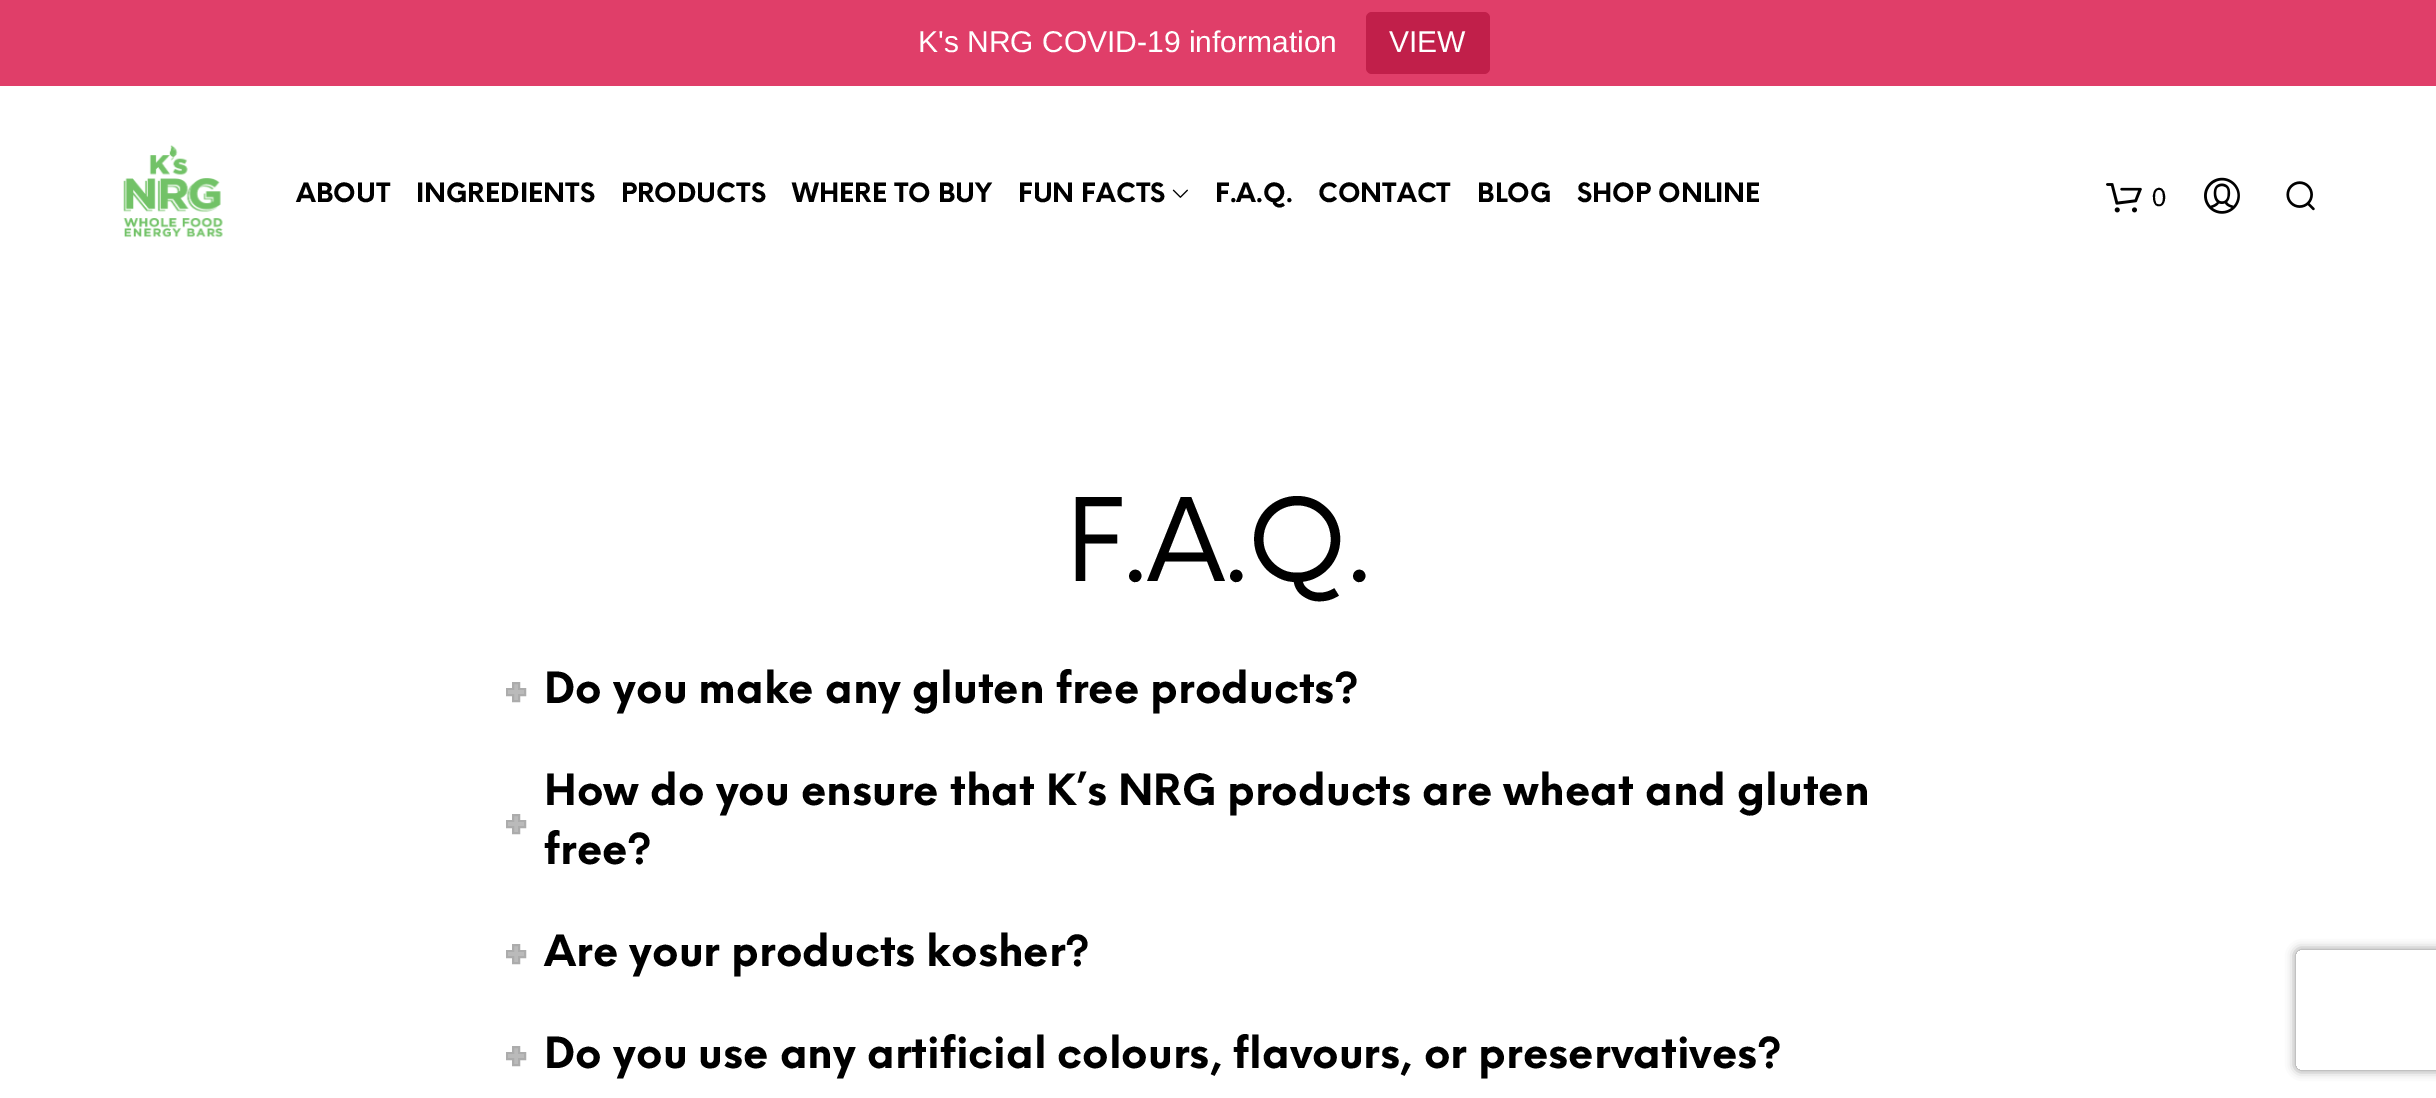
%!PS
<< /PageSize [2436 1098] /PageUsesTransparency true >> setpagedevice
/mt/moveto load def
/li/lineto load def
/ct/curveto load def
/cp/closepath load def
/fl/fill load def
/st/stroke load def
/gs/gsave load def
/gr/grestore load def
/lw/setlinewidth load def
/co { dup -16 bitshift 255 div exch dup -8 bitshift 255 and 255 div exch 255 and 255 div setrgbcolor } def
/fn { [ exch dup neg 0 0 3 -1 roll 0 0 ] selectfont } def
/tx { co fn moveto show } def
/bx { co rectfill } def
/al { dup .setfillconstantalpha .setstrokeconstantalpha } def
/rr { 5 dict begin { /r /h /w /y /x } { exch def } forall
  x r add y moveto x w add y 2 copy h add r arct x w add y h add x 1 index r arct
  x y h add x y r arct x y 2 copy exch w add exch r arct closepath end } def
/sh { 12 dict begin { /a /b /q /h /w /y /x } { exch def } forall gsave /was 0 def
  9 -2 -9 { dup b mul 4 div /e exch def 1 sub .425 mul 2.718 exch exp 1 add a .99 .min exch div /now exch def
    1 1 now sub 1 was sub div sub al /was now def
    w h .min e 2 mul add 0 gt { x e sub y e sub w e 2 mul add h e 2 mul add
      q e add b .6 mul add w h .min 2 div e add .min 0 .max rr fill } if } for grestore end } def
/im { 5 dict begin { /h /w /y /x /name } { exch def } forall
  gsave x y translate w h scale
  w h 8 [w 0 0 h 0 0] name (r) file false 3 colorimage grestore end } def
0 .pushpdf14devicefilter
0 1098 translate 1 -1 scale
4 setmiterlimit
0 0 2436 1098 16#FFFFFF bx
0 0 2436 86 16#E03E69 bx
16#C11F4A co
1366 12 124 62 6 rr fl
(media/1.raw) 123 145 100 93 im
(media/2.raw) 1172 189 16 9 im
(media/3.raw) 2106 183 36 30 im
(media/4.raw) 2204 177 36 37 im
(media/5.raw) 2286 181 29 30 im
16#ACACAC co
2 lw
507 689 18 6 rectstroke
16#BABABA co
513 683 mt 519 683 li 519 701 li 513 701 li cp gs fl gr
16#ACACAC co
st
508 690 16 4 16#BABABA bx
16#ACACAC co
507 821 18 6 rectstroke
16#BABABA co
513 815 mt 519 815 li 519 833 li 513 833 li cp gs fl gr
16#ACACAC co
st
508 822 16 4 16#BABABA bx
16#ACACAC co
507 951 18 6 rectstroke
16#BABABA co
513 945 mt 519 945 li 519 963 li 513 963 li cp gs fl gr
16#ACACAC co
st
508 952 16 4 16#BABABA bx
16#ACACAC co
507 1053 18 6 rectstroke
16#BABABA co
513 1047 mt 519 1047 li 519 1065 li 513 1065 li cp gs fl gr
16#ACACAC co
st
508 1054 16 4 16#BABABA bx
gs
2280 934 mt 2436 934 li 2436 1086 li 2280 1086 li cp 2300 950 mt 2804 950 li 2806 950 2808 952 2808 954 ct 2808 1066 li 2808 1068 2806 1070 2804 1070 ct 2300 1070 li 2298 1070 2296 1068 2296 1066 ct 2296 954 li 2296 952 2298 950 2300 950 ct cp eoclip newpath
16#808080 co
2296 950 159 120 4 5 1 sh
gr
(K's NRG COVID-19 information) 918 52 /LiberationSans-Regular 30 16#FFFFFF tx
(VIEW) 1389 52 /LiberationSans-Regular 30 16#FFFFFF tx
(ABOUT) 296 202 /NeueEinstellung-Bold 26 16#000000 tx
(INGREDIENTS) 416 202 /NeueEinstellung-Bold 26 16#000000 tx
(PRODUCTS) 621 202 /NeueEinstellung-Bold 26 16#000000 tx
(WHERE TO BUY) 792 202 /NeueEinstellung-Bold 26 16#000000 tx
(FUN FACTS) 1018 202 /NeueEinstellung-Bold 26 16#000000 tx
(F.A.Q.) 1215 202 /NeueEinstellung-Bold 26 16#000000 tx
(CONTACT) 1318 202 /NeueEinstellung-Bold 26 16#000000 tx
(BLOG) 1477 202 /NeueEinstellung-Bold 26 16#000000 tx
(SHOP ONLINE) 1577 202 /NeueEinstellung-Bold 26 16#000000 tx
(0) 2152 206 /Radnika-Regular 26 16#000000 tx
(F.A.Q.) 1065 581 /NeueEinstellung-Regular 112 16#000000 tx
(Do you make any gluten free products?) 544 703 /NeueEinstellung-Bold 42 16#000000 tx
(How do you ensure that K’s NRG products are wheat and gluten) 544 805 /NeueEinstellung-Bold 42 16#000000 tx
(free?) 544 864 /NeueEinstellung-Bold 42 16#000000 tx
(Are your products kosher?) 544 966 /NeueEinstellung-Bold 42 16#000000 tx
(Do you use any artificial colours, flavours, or preservatives?) 544 1068 /NeueEinstellung-Bold 42 16#000000 tx
.poppdf14devicefilter showpage
